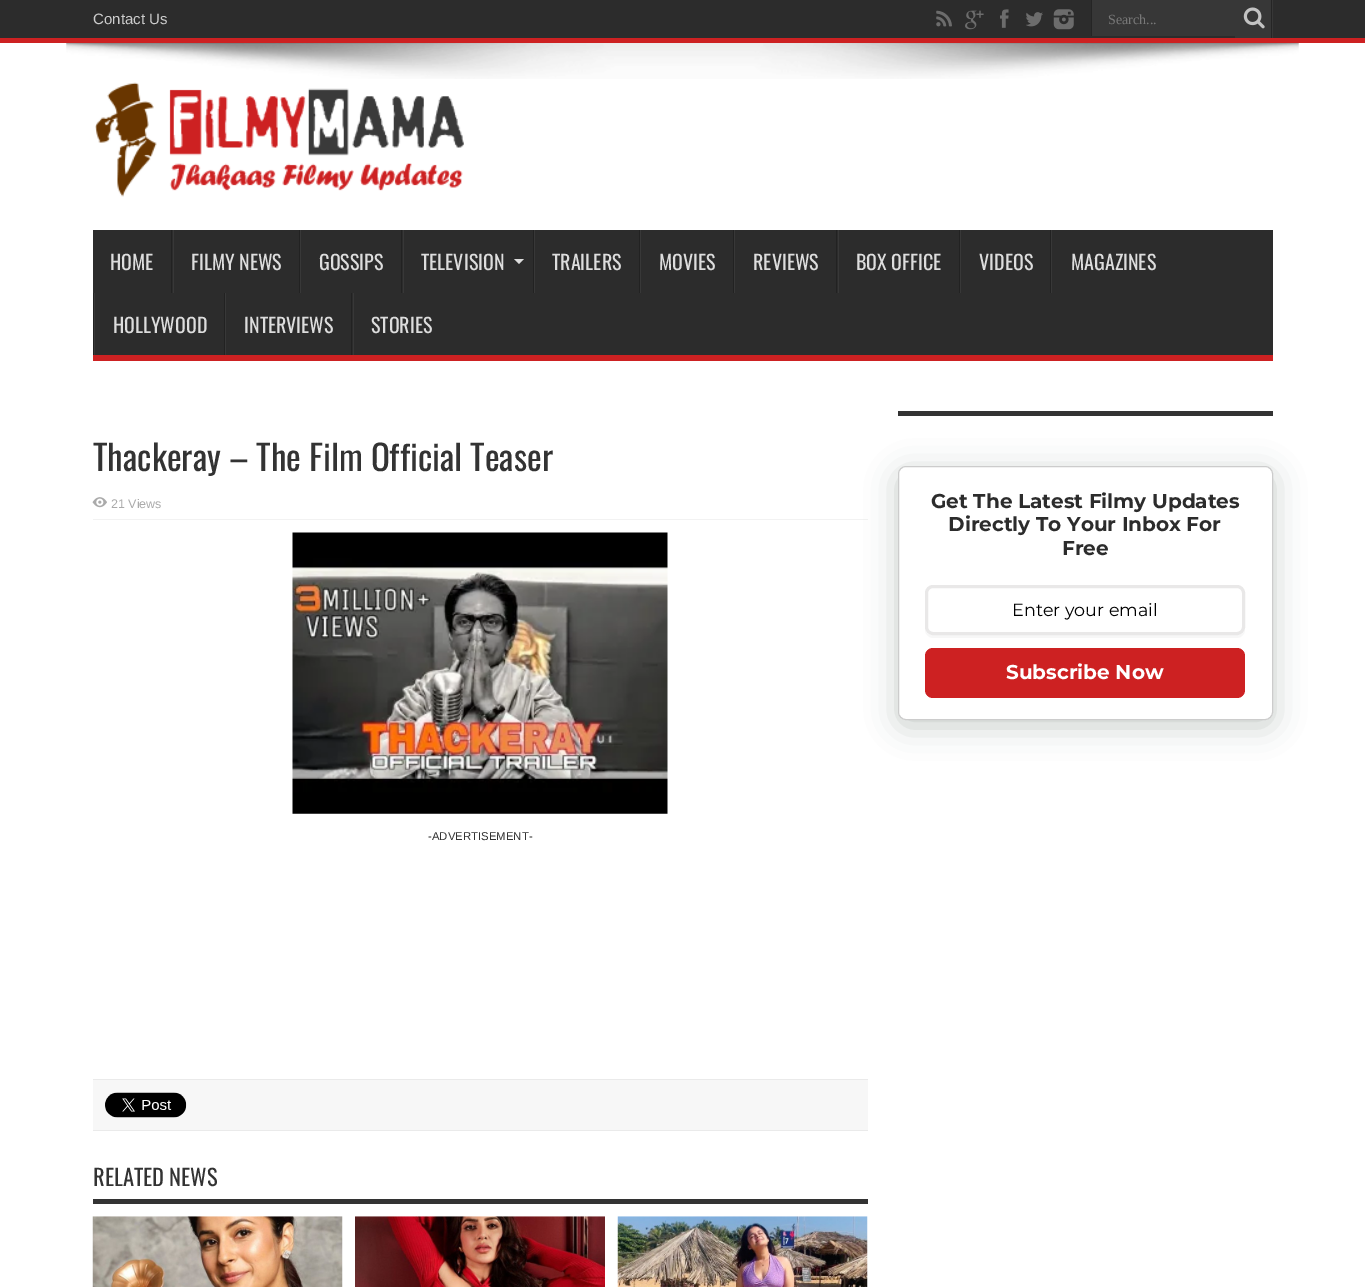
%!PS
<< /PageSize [1365 1287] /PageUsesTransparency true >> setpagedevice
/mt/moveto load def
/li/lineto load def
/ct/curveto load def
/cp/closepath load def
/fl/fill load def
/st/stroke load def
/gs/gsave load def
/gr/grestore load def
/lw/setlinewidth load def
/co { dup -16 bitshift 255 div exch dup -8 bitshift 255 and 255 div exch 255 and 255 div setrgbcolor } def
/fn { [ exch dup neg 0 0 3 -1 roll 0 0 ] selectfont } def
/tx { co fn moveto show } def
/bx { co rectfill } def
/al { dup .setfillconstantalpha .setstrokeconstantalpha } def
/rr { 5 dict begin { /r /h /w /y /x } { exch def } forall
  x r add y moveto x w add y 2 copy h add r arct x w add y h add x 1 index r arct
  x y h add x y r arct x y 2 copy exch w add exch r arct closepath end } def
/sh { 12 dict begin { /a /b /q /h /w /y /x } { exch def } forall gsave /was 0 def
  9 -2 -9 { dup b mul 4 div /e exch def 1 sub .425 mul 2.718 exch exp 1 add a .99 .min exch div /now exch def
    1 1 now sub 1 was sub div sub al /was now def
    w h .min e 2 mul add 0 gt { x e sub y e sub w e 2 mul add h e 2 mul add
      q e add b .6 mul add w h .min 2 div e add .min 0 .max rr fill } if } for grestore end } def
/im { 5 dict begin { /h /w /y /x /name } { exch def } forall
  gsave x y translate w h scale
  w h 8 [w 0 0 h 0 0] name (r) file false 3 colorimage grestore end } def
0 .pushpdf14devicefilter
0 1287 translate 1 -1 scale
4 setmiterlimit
0 0 1365 1287 16#FFFFFF bx
0 0 1365 38 16#2C2C2C bx
0 38 1365 5 16#CD2122 bx
(media/1.raw) 936 10 16 17 im
(media/2.raw) 965 10 19 20 im
(media/3.raw) 1000 9 9 19 im
(media/4.raw) 1026 12 17 15 im
(media/5.raw) 1053 9 21 21 im
1092 0 143 36 16#373737 bx
1091 0 1 36 16#252525 bx
1235 0 38 38 16#373737 bx
1271 0 1 38 16#252525 bx
(media/6.raw) 1243 7 22 22 im
(media/7.raw) 66 43 1233 36 im
(media/8.raw) 95 82 369 115 im
93 230 1180 125 16#2C2C2C bx
93 355 1180 6 16#CD2122 bx
171 230 1 63 16#222222 bx
173 230 1 63 16#383838 bx
299 230 1 63 16#222222 bx
300 230 1 63 16#383838 bx
401 230 1 63 16#222222 bx
403 230 1 63 16#383838 bx
16#DDDDDD co
514 259 mt 524 259 li 519 264 li cp fl
533 230 1 63 16#222222 bx
534 230 1 63 16#383838 bx
639 230 1 63 16#222222 bx
640 230 1 63 16#383838 bx
733 230 1 63 16#222222 bx
734 230 1 63 16#383838 bx
836 230 1 63 16#222222 bx
838 230 1 63 16#383838 bx
959 230 1 63 16#222222 bx
960 230 1 63 16#383838 bx
1050 230 1 63 16#222222 bx
1051 230 1 63 16#383838 bx
93 293 1 62 16#222222 bx
94 293 1 62 16#383838 bx
224 293 1 62 16#222222 bx
225 293 1 62 16#383838 bx
351 293 1 62 16#222222 bx
353 293 1 62 16#383838 bx
93 519 775 1 16#F2F2F2 bx
(media/9.raw) 92 497 15 11 im
(media/10.raw) 292 532 376 282 im
93 1080 775 50 16#F7F7F7 bx
93 1079 775 1 16#EAEAEA bx
93 1130 775 1 16#EAEAEA bx
(media/11.raw) 105 1092 82 26 im
93 1199 775 5 16#333333 bx
(media/12.raw) 92 1216 251 71 im
(media/13.raw) 355 1216 250 71 im
(media/14.raw) 617 1216 251 71 im
898 411 375 5 16#333333 bx
16#223C2F co
898 473 375 253 8 15.5 .25 sh
16#FFFFFF co
898.5 466.5 374 253 7.5 rr gs fl gr
16#CCCCCC co
st
16#F7F7F7 co
925 628 mt 925 630 li 925 634 929 638 933 638 ct 1237 638 li 1241 638 1245 634 1245 630 ct 1245 628 li 1245 632 1242 635 1238 635 ct 932 635 li 928 635 925 632 925 628 ct cp fl
16#E9E8E8 co
3 lw
926.5 586.5 317 47 6.5 rr st
16#CD2122 co
925 648 320 50 8 rr fl
(Contact Us) 93 24 /LiberationSans-Regular 15 16#CCCCCC tx
(Search...) 1108 24 /LiberationSerif-Regular 14 16#787878 tx
(HOME) 110 270 /Oswald-Regular 20 16#DDDDDD tx
(FILMY NEWS) 191 270 /Oswald-Regular 20 16#DDDDDD tx
(GOSSIPS) 319 270 /Oswald-Regular 20 16#DDDDDD tx
(TELEVISION) 421 270 /Oswald-Regular 20 16#DDDDDD tx
(TRAILERS) 552 270 /Oswald-Regular 20 16#DDDDDD tx
(MOVIES) 659 270 /Oswald-Regular 20 16#DDDDDD tx
(REVIEWS) 753 270 /Oswald-Regular 20 16#DDDDDD tx
(BOX OFFICE) 856 270 /Oswald-Regular 20 16#DDDDDD tx
(VIDEOS) 979 270 /Oswald-Regular 20 16#DDDDDD tx
(MAGAZINES) 1071 270 /Oswald-Regular 20 16#DDDDDD tx
(HOLLYWOOD) 113 333 /Oswald-Regular 20 16#DDDDDD tx
(INTERVIEWS) 244 333 /Oswald-Regular 20 16#DDDDDD tx
(STORIES) 371 333 /Oswald-Regular 20 16#DDDDDD tx
(Thackeray – The Film Official Teaser) 93 471 /Oswald-Regular 35 16#333333 tx
(21 Views) 111 508 /LiberationSans-Regular 12.5 16#AAAAAA tx
(-ADVERTISEMENT-) 428 840 /LiberationSans-Regular 11.4 16#333333 tx
(RELATED NEWS) 93 1186 /Oswald-Regular 22.5 16#333333 tx
(Get The Latest Filmy Updates) 931 508 /Montserrat-Thin 20 16#2C2C2C tx
(Directly To Your Inbox For) 948 531 /Montserrat-Thin 20 16#2C2C2C tx
(Free) 1062 555 /Montserrat-Thin 20 16#2C2C2C tx
(Enter your email) 1012 616 /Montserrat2-Thin 17.5 16#000000 tx
(Subscribe Now) 1006 679 /Montserrat-Thin 20 16#FFFFFF tx
.poppdf14devicefilter showpage
